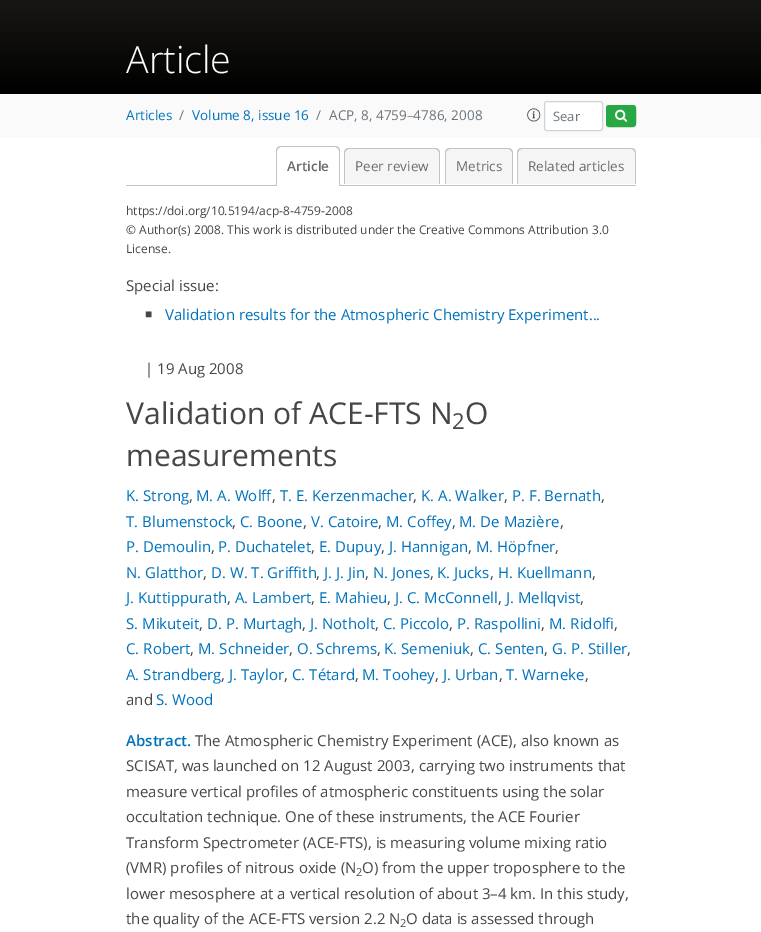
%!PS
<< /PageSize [761 932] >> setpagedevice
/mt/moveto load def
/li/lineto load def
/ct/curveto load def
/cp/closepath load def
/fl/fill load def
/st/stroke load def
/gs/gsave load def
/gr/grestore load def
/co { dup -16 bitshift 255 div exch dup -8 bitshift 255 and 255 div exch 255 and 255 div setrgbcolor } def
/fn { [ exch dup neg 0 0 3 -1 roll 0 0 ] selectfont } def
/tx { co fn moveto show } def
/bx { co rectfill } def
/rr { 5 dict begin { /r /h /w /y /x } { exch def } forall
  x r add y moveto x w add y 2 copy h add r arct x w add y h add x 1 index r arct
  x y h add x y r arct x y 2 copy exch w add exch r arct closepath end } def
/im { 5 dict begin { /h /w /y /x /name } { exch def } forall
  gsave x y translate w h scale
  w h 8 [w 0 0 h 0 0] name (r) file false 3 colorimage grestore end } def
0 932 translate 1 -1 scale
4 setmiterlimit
0 0 761 932 16#FFFFFF bx
gs 0 0 mt 761 0 li 761 94 li 0 94 li cp clip newpath
<< /ShadingType 2 /ColorSpace /DeviceRGB /Coords [381 94 381 -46] /Extend [true true] /Function << /FunctionType 3 /Domain [0 1] /Functions [<< /FunctionType 2 /Domain [0 1] /C0 [0 0 0] /C1 [.027 .027 .024] /N 1 >> << /FunctionType 2 /Domain [0 1] /C0 [.027 .027 .024] /C1 [.051 .047 .043] /N 1 >> << /FunctionType 2 /Domain [0 1] /C0 [.051 .047 .043] /C1 [.067 .063 .055] /N 1 >> << /FunctionType 2 /Domain [0 1] /C0 [.067 .063 .055] /C1 [.078 .075 .067] /N 1 >> << /FunctionType 2 /Domain [0 1] /C0 [.078 .075 .067] /C1 [.09 .082 .075] /N 1 >> << /FunctionType 2 /Domain [0 1] /C0 [.09 .082 .075] /C1 [.098 .09 .078] /N 1 >> << /FunctionType 2 /Domain [0 1] /C0 [.098 .09 .078] /C1 [.102 .094 .082] /N 1 >> << /FunctionType 2 /Domain [0 1] /C0 [.102 .094 .082] /C1 [.106 .098 .086] /N 1 >> << /FunctionType 2 /Domain [0 1] /C0 [.106 .098 .086] /C1 [.106 .098 .09] /N 1 >> << /FunctionType 2 /Domain [0 1] /C0 [.106 .098 .09] /C1 [.11 .102 .09] /N 1 >> << /FunctionType 2 /Domain [0 1] /C0 [.11 .102 .09] /C1 [.11 .102 .09] /N 1 >>] /Bounds [.19 .34 .47 .56 .65 .73 .8 .86 .91 .95] /Encode [0 1 0 1 0 1 0 1 0 1 0 1 0 1 0 1 0 1 0 1 0 1] >> >> shfill gr
0 94 761 44 16#FAFAFA bx
(media/1.raw) 527 108 14 14 im
16#FFFFFF co
544.5 101.5 58 29 2.5 rr gs fl gr
16#CED4DA co
st
16#28A745 co
606.5 105.5 29 21 2.5 rr gs fl gr
st
(media/2.raw) 615 109 13 13 im
126 185 510 1 16#C3C3C3 bx
16#FFFFFF co
281 146 mt 335 146 li 338 146 340 148 340 151 ct 340 186 li 276 186 li 276 151 li 276 148 278 146 281 146 ct cp fl
16#C3C3C3 co
281 146 mt 335 146 li 338 146 340 148 340 151 ct 340 186 li 276 186 li 276 151 li 276 148 278 146 281 146 ct cp 281 147 mt 335 147 li 337 147 339 149 339 151 ct 339 186 li 277 186 li 277 151 li 277 149 279 147 281 147 ct cp eofill
16#F5F5F5 co
349 148 mt 435 148 li 438 148 440 150 440 153 ct 440 184 li 344 184 li 344 153 li 344 150 346 148 349 148 ct cp fl
16#C3C3C3 co
349 148 mt 435 148 li 438 148 440 150 440 153 ct 440 184 li 344 184 li 344 153 li 344 150 346 148 349 148 ct cp 349 149 mt 435 149 li 437 149 439 151 439 153 ct 439 184 li 345 184 li 345 153 li 345 151 347 149 349 149 ct cp eofill
16#F5F5F5 co
450 148 mt 508 148 li 511 148 513 150 513 153 ct 513 184 li 445 184 li 445 153 li 445 150 447 148 450 148 ct cp fl
16#C3C3C3 co
450 148 mt 508 148 li 511 148 513 150 513 153 ct 513 184 li 445 184 li 445 153 li 445 150 447 148 450 148 ct cp 450 149 mt 508 149 li 510 149 512 151 512 153 ct 512 184 li 446 184 li 446 153 li 446 151 448 149 450 149 ct cp eofill
16#F5F5F5 co
522 148 mt 631 148 li 634 148 636 150 636 153 ct 636 184 li 517 184 li 517 153 li 517 150 519 148 522 148 ct cp fl
16#C3C3C3 co
522 148 mt 631 148 li 634 148 636 150 636 153 ct 636 184 li 517 184 li 517 153 li 517 150 519 148 522 148 ct cp 522 149 mt 631 149 li 633 149 635 151 635 153 ct 635 184 li 518 184 li 518 153 li 518 151 520 149 522 149 ct cp eofill
(Article) 126 73 /OpenSans-Light 37.5 16#FFFFFF tx
(Articles) 126 120 /OpenSans-Regular 13.5 16#0072BC tx
(/) 179 120 /OpenSans-Regular 13.5 16#6C757D tx
(Volume 8, issue 16) 192 120 /OpenSans-Regular 13.5 16#0072BC tx
(/) 316 120 /OpenSans-Regular 13.5 16#6C757D tx
(ACP, 8, 4759–4786, 2008) 329 120 /OpenSans-Regular 13.5 16#6C757D tx
(Sear) 553 121 /OpenSans-Regular 13 16#6C757D tx
(Article) 287 171 /OpenSans-SemiBold 13.5 16#6A6A6A tx
(Peer review) 355 171 /OpenSans-Regular 13.5 16#6A6A6A tx
(Metrics) 456 171 /OpenSans-Regular 13.5 16#6A6A6A tx
(Related articles) 528 171 /OpenSans-Regular 13.5 16#6A6A6A tx
(https://doi.org/10.5194/acp-8-4759-2008) 126 215 /OpenSans-Regular 12 16#464646 tx
(© Author\(s\) 2008. This work is distributed under the Creative Commons Attribution 3.0) 126 234 /OpenSans-Regular 12 16#464646 tx
(License.) 126 253 /OpenSans-Regular 12 16#464646 tx
(Special issue:) 126 291 /OpenSans-Regular 15 16#464646 tx
(■) 145 318 /LiberationSans-Regular 12 16#464646 tx
(Validation results for the Atmospheric Chemistry Experiment...) 165 320 /OpenSans-Regular 15 16#0072BC tx
(| 19 Aug 2008) 145 374 /OpenSans-Regular 15 16#464646 tx
(Validation of ACE-FTS N) 126 424 /OpenSans-Regular 30 16#464646 tx
(2) 452 429 /OpenSans-Regular 22 16#464646 tx
(O) 465 424 /OpenSans-Regular 30 16#464646 tx
(measurements) 126 466 /OpenSans-Regular 30 16#464646 tx
(K. Strong) 126 501 /OpenSans-Regular 15 16#0072BC tx
(,) 189 501 /OpenSans-Regular 15 16#464646 tx
(M. A. Wolff) 196 501 /OpenSans-Regular 15 16#0072BC tx
(,) 272 501 /OpenSans-Regular 15 16#464646 tx
(T. E. Kerzenmacher) 280 501 /OpenSans-Regular 15 16#0072BC tx
(,) 413 501 /OpenSans-Regular 15 16#464646 tx
(K. A. Walker) 421 501 /OpenSans-Regular 15 16#0072BC tx
(,) 504 501 /OpenSans-Regular 15 16#464646 tx
(P. F. Bernath) 512 501 /OpenSans-Regular 15 16#0072BC tx
(,) 601 501 /OpenSans-Regular 15 16#464646 tx
(T. Blumenstock) 126 527 /OpenSans-Regular 15 16#0072BC tx
(,) 232 527 /OpenSans-Regular 15 16#464646 tx
(C. Boone) 240 527 /OpenSans-Regular 15 16#0072BC tx
(,) 303 527 /OpenSans-Regular 15 16#464646 tx
(V. Catoire) 311 527 /OpenSans-Regular 15 16#0072BC tx
(,) 378 527 /OpenSans-Regular 15 16#464646 tx
(M. Coffey) 386 527 /OpenSans-Regular 15 16#0072BC tx
(,) 452 527 /OpenSans-Regular 15 16#464646 tx
(M. De Mazière) 459 527 /OpenSans-Regular 15 16#0072BC tx
(,) 560 527 /OpenSans-Regular 15 16#464646 tx
(P. Demoulin) 126 552 /OpenSans-Regular 15 16#0072BC tx
(,) 211 552 /OpenSans-Regular 15 16#464646 tx
(P. Duchatelet) 218 552 /OpenSans-Regular 15 16#0072BC tx
(,) 311 552 /OpenSans-Regular 15 16#464646 tx
(E. Dupuy) 319 552 /OpenSans-Regular 15 16#0072BC tx
(,) 381 552 /OpenSans-Regular 15 16#464646 tx
(J. Hannigan) 389 552 /OpenSans-Regular 15 16#0072BC tx
(,) 468 552 /OpenSans-Regular 15 16#464646 tx
(M. Höpfner) 476 552 /OpenSans-Regular 15 16#0072BC tx
(,) 555 552 /OpenSans-Regular 15 16#464646 tx
(N. Glatthor) 126 578 /OpenSans-Regular 15 16#0072BC tx
(,) 203 578 /OpenSans-Regular 15 16#464646 tx
(D. W. T. Griffith) 211 578 /OpenSans-Regular 15 16#0072BC tx
(,) 316 578 /OpenSans-Regular 15 16#464646 tx
(J. J. Jin) 324 578 /OpenSans-Regular 15 16#0072BC tx
(,) 365 578 /OpenSans-Regular 15 16#464646 tx
(N. Jones) 373 578 /OpenSans-Regular 15 16#0072BC tx
(,) 430 578 /OpenSans-Regular 15 16#464646 tx
(K. Jucks) 437 578 /OpenSans-Regular 15 16#0072BC tx
(,) 490 578 /OpenSans-Regular 15 16#464646 tx
(H. Kuellmann) 498 578 /OpenSans-Regular 15 16#0072BC tx
(,) 592 578 /OpenSans-Regular 15 16#464646 tx
(J. Kuttippurath) 126 603 /OpenSans-Regular 15 16#0072BC tx
(,) 227 603 /OpenSans-Regular 15 16#464646 tx
(A. Lambert) 235 603 /OpenSans-Regular 15 16#0072BC tx
(,) 311 603 /OpenSans-Regular 15 16#464646 tx
(E. Mahieu) 319 603 /OpenSans-Regular 15 16#0072BC tx
(,) 387 603 /OpenSans-Regular 15 16#464646 tx
(J. C. McConnell) 395 603 /OpenSans-Regular 15 16#0072BC tx
(,) 498 603 /OpenSans-Regular 15 16#464646 tx
(J. Mellqvist) 506 603 /OpenSans-Regular 15 16#0072BC tx
(,) 580 603 /OpenSans-Regular 15 16#464646 tx
(S. Mikuteit) 126 629 /OpenSans-Regular 15 16#0072BC tx
(,) 199 629 /OpenSans-Regular 15 16#464646 tx
(D. P. Murtagh) 207 629 /OpenSans-Regular 15 16#0072BC tx
(,) 302 629 /OpenSans-Regular 15 16#464646 tx
(J. Notholt) 310 629 /OpenSans-Regular 15 16#0072BC tx
(,) 375 629 /OpenSans-Regular 15 16#464646 tx
(C. Piccolo) 383 629 /OpenSans-Regular 15 16#0072BC tx
(,) 449 629 /OpenSans-Regular 15 16#464646 tx
(P. Raspollini) 457 629 /OpenSans-Regular 15 16#0072BC tx
(,) 541 629 /OpenSans-Regular 15 16#464646 tx
(M. Ridolfi) 549 629 /OpenSans-Regular 15 16#0072BC tx
(,) 614 629 /OpenSans-Regular 15 16#464646 tx
(C. Robert) 126 654 /OpenSans-Regular 15 16#0072BC tx
(,) 190 654 /OpenSans-Regular 15 16#464646 tx
(M. Schneider) 198 654 /OpenSans-Regular 15 16#0072BC tx
(,) 289 654 /OpenSans-Regular 15 16#464646 tx
(O. Schrems) 297 654 /OpenSans-Regular 15 16#0072BC tx
(,) 377 654 /OpenSans-Regular 15 16#464646 tx
(K. Semeniuk) 384 654 /OpenSans-Regular 15 16#0072BC tx
(,) 470 654 /OpenSans-Regular 15 16#464646 tx
(C. Senten) 478 654 /OpenSans-Regular 15 16#0072BC tx
(,) 544 654 /OpenSans-Regular 15 16#464646 tx
(G. P. Stiller) 552 654 /OpenSans-Regular 15 16#0072BC tx
(,) 627 654 /OpenSans-Regular 15 16#464646 tx
(A. Strandberg) 126 680 /OpenSans-Regular 15 16#0072BC tx
(,) 221 680 /OpenSans-Regular 15 16#464646 tx
(J. Taylor) 229 680 /OpenSans-Regular 15 16#0072BC tx
(,) 284 680 /OpenSans-Regular 15 16#464646 tx
(C. Tétard) 292 680 /OpenSans-Regular 15 16#0072BC tx
(,) 355 680 /OpenSans-Regular 15 16#464646 tx
(M. Toohey) 362 680 /OpenSans-Regular 15 16#0072BC tx
(,) 435 680 /OpenSans-Regular 15 16#464646 tx
(J. Urban) 443 680 /OpenSans-Regular 15 16#0072BC tx
(,) 499 680 /OpenSans-Regular 15 16#464646 tx
(T. Warneke) 506 680 /OpenSans-Regular 15 16#0072BC tx
(,) 585 680 /OpenSans-Regular 15 16#464646 tx
(and) 126 705 /OpenSans-Regular 15 16#464646 tx
(S. Wood) 156 705 /OpenSans-Regular 15 16#0072BC tx
(Abstract.) 126 746 /OpenSans-SemiBold 15 16#0072BC tx
(The Atmospheric Chemistry Experiment \(ACE\), also known as) 195 746 /OpenSans-Regular 15 16#464646 tx
(SCISAT, was launched on 12 August 2003, carrying two instruments that) 126 771 /OpenSans-Regular 15 16#464646 tx
(measure vertical profiles of atmospheric constituents using the solar) 126 797 /OpenSans-Regular 15 16#464646 tx
(occultation technique. One of these instruments, the ACE Fourier) 126 822 /OpenSans-Regular 15 16#464646 tx
(Transform Spectrometer \(ACE-FTS\), is measuring volume mixing ratio) 126 848 /OpenSans-Regular 15 16#464646 tx
(\(VMR\) profiles of nitrous oxide \(N) 126 873 /OpenSans-Regular 15 16#464646 tx
(2) 356 876 /OpenSans-Regular 11 16#464646 tx
(O\) from the upper troposphere to the) 362 873 /OpenSans-Regular 15 16#464646 tx
(lower mesosphere at a vertical resolution of about 3–4 km. In this study,) 126 899 /OpenSans-Regular 15 16#464646 tx
(the quality of the ACE-FTS version 2.2 N) 126 924 /OpenSans-Regular 15 16#464646 tx
(2) 400 927 /OpenSans-Regular 11 16#464646 tx
(O data is assessed through) 406 924 /OpenSans-Regular 15 16#464646 tx
showpage
